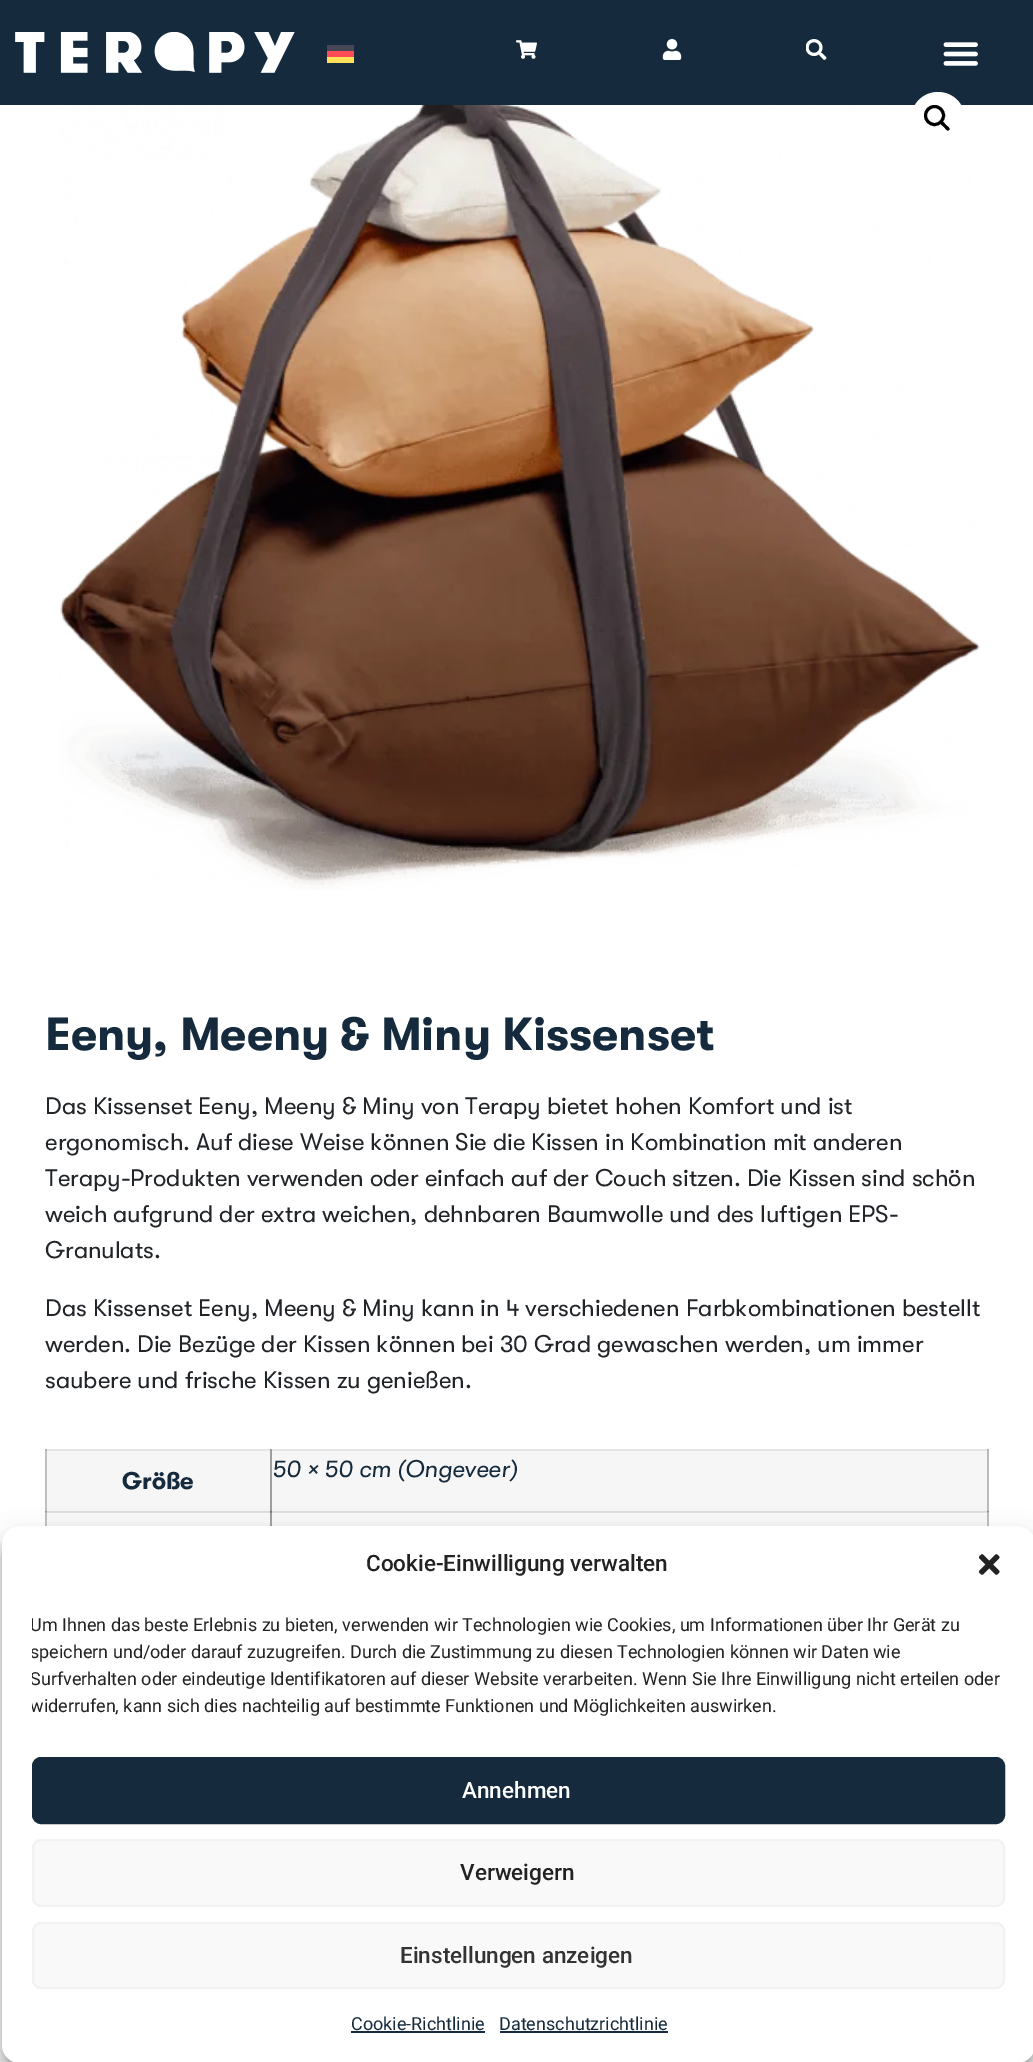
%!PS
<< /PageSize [1033 2062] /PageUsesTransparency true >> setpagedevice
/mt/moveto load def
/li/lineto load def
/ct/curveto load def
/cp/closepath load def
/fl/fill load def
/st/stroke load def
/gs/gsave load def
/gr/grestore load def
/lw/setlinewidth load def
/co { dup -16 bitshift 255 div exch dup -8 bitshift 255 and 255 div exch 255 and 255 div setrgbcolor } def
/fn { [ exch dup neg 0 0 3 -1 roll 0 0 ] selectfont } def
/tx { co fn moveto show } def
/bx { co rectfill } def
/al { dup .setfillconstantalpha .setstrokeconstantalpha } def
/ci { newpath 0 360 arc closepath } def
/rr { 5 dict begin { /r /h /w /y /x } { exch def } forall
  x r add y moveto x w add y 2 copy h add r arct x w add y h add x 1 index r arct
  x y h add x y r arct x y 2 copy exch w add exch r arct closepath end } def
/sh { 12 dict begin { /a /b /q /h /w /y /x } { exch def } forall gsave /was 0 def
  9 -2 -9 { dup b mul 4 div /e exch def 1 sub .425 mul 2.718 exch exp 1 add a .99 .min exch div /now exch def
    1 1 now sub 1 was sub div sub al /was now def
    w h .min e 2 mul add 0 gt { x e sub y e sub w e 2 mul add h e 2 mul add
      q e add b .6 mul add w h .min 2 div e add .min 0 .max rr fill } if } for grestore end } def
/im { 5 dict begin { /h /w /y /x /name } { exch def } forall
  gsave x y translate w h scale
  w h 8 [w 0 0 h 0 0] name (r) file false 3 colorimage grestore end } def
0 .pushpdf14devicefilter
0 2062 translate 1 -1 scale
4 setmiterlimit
0 0 1033 2062 16#FFFFFF bx
45 1449 2 77 16#C0C0C0 bx
45 1512 2 1 16#ADADAD bx
45 1511 2 1 16#979797 bx
0 0 1033 105 16#152B3D bx
(media/1.raw) 15 32 280 41 im
327 45 27 6 16#464655 bx
327 51 27 6 16#FF4B55 bx
327 57 27 6 16#FFE15A bx
(media/2.raw) 516 40 21 19 im
(media/3.raw) 662 39 20 21 im
(media/4.raw) 806 39 21 21 im
(media/5.raw) 943 42 35 24 im
(media/6.raw) 59 105 921 785 im
16#FFFFFF co
938 119 27 ci fl
16#000000 co
3 lw
934.5 115.5 9 ci st
941 122 mt 942.5 120 945 124 946 125 ct 947 126 951 128.5 949 130 ct 947.5 132 945 128 944 127 ct 943 126 939 123.5 941 122 ct cp fl
45 1449 944 2 16#E6E6E6 bx
45 1449 2 2 16#B3B3B3 bx
270 1449 2 2 16#9A9A9A bx
987 1449 2 2 16#B3B3B3 bx
47 1451 223 60 16#F6F6F6 bx
47 1511 942 1 16#DDDDDD bx
270 1451 2 61 16#9E9E9E bx
270 1511 2 1 16#777777 bx
272 1451 715 60 16#F6F6F6 bx
987 1451 2 61 16#BBBBBB bx
987 1511 2 1 16#8E8E8E bx
47 1513 223 13 16#F9F9F9 bx
47 1512 942 1 16#E0E0E0 bx
270 1512 2 14 16#9F9F9F bx
270 1512 2 1 16#818181 bx
272 1513 715 13 16#F9F9F9 bx
987 1512 2 14 16#BDBDBD bx
987 1512 2 1 16#AAAAAA bx
gs
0 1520 mt 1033 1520 li 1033 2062 li 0 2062 li cp 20 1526 mt 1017 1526 li 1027 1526 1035 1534 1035 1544 ct 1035 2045 li 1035 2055 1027 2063 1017 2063 ct 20 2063 li 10 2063 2 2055 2 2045 ct 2 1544 li 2 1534 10 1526 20 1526 ct cp eoclip newpath
16#000000 co
2 1535 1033 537 18 4.5 .23 sh
gr
gs
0 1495 mt 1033 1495 li 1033 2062 li 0 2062 li cp 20 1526 mt 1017 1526 li 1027 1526 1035 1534 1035 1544 ct 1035 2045 li 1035 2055 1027 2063 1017 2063 ct 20 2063 li 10 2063 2 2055 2 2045 ct 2 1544 li 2 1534 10 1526 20 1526 ct cp eoclip newpath
16#000000 co
2 1541 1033 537 18 15 .19 sh
gr
16#FFFFFF co
2 1526 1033 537 18 rr fl
(media/7.raw) 979 1554 21 21 im
16#152B3D co
33 1758 971 65 8 rr gs fl gr
2 lw
st
16#F9F9F9 co
33 1840 971 66 8 rr gs fl gr
16#F2F2F2 co
st
16#F9F9F9 co
33 1923 971 65 8 rr gs fl gr
16#F2F2F2 co
st
351 2031 134 2 16#152B3D bx
500 2031 168 2 16#152B3D bx
(Eeny, Meeny & Miny Kissenset) 45 1050 /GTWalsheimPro-Bold 46.5 16#152B3D tx
(Das Kissenset Eeny, Meeny & Miny von Terapy bietet hohen Komfort und ist) 45 1114 /GTWalsheimPro-Regular 24 16#212529 tx
(ergonomisch. Auf diese Weise können Sie die Kissen in Kombination mit anderen) 45 1150 /GTWalsheimPro-Regular 24 16#212529 tx
(Terapy-Produkten verwenden oder einfach auf der Couch sitzen. Die Kissen sind schön) 45 1186 /GTWalsheimPro-Regular 24 16#212529 tx
(weich aufgrund der extra weichen, dehnbaren Baumwolle und des luftigen EPS-) 45 1222 /GTWalsheimPro-Regular 24 16#212529 tx
(Granulats.) 45 1258 /GTWalsheimPro-Regular 24 16#212529 tx
(Das Kissenset Eeny, Meeny & Miny kann in 4 verschiedenen Farbkombinationen bestellt) 45 1316 /GTWalsheimPro-Regular 24 16#212529 tx
(werden. Die Bezüge der Kissen können bei 30 Grad gewaschen werden, um immer) 45 1352 /GTWalsheimPro-Regular 24 16#212529 tx
(saubere und frische Kissen zu genießen.) 45 1388 /GTWalsheimPro-Regular 24 16#212529 tx
(Größe) 122 1489 /GTWalsheimPro-Bold 24 16#152B3D tx
(50 × 50 cm \(Ongeveer\)) 272 1477 /GTWalsheimPro-Italic 24 16#152B3D tx
(Cookie-Einwilligung verwalten) 366 1571 /Roboto-Medium 22.5 16#222222 tx
gs
32 1611 973 116 rectclip
(Um Ihnen das beste Erlebnis zu bieten, verwenden wir Technologien wie Cookies, um Informationen über Ihr Gerät zu) 30 1631 /Roboto-Regular 18 16#222222 tx
(speichern und/oder darauf zuzugreifen. Durch die Zustimmung zu diesen Technologien können wir Daten wie) 30 1658 /Roboto-Regular 18 16#222222 tx
(Surfverhalten oder eindeutige Identifikatoren auf dieser Website verarbeiten. Wenn Sie Ihre Einwilligung nicht erteilen oder) 30 1685 /Roboto-Regular 18 16#222222 tx
(widerrufen, kann sich dies nachteilig auf bestimmte Funktionen und Möglichkeiten auswirken.) 30 1712 /Roboto-Regular 18 16#222222 tx
gr
(Annehmen) 462 1798 /Roboto-Medium 22.5 16#FFFFFF tx
(Verweigern) 460 1880 /Roboto-Medium 22.5 16#222222 tx
(Einstellungen anzeigen) 400 1963 /Roboto-Medium 22.5 16#333333 tx
(Cookie-Richtlinie) 351 2030 /Roboto-Regular 18 16#152B3D tx
(Datenschutzrichtlinie) 499 2030 /Roboto-Regular 18 16#152B3D tx
.poppdf14devicefilter showpage
